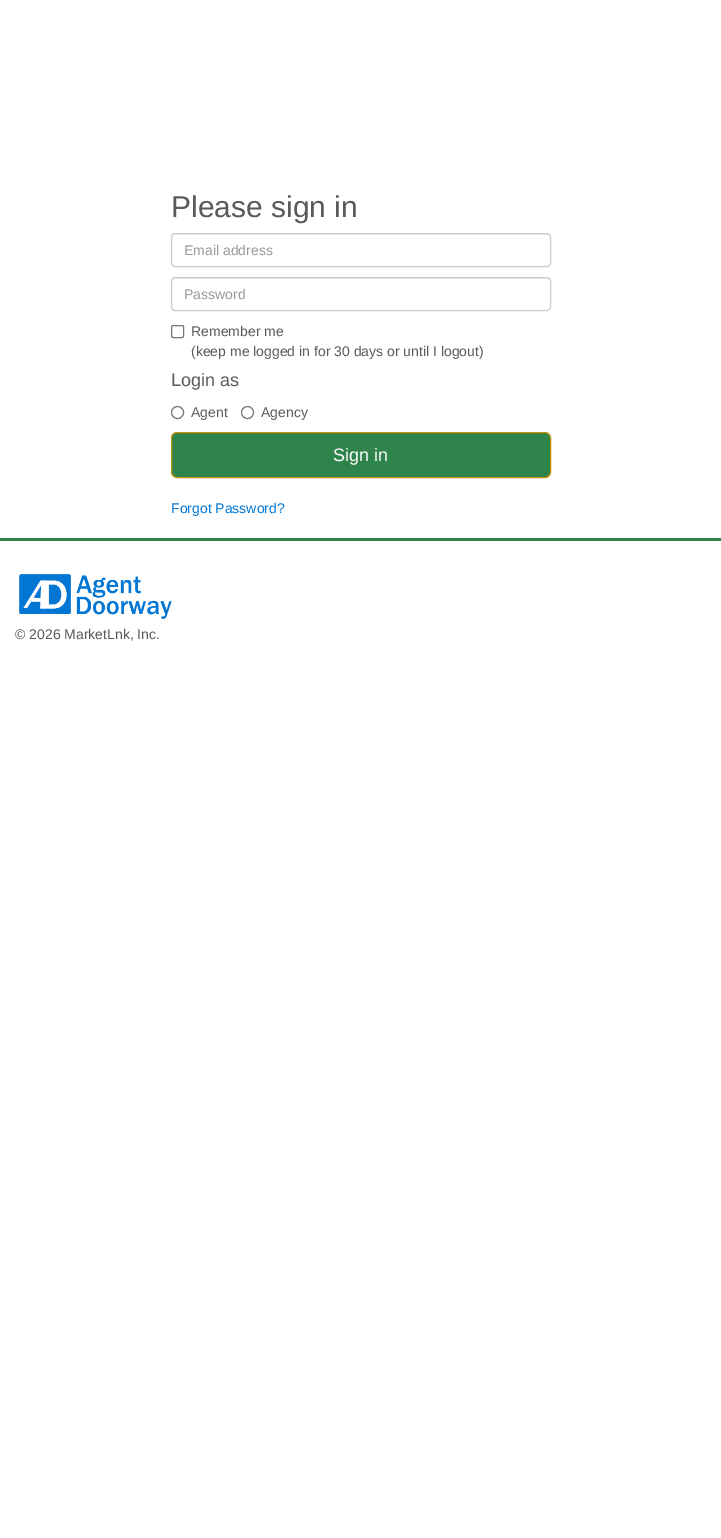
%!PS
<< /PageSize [721 1538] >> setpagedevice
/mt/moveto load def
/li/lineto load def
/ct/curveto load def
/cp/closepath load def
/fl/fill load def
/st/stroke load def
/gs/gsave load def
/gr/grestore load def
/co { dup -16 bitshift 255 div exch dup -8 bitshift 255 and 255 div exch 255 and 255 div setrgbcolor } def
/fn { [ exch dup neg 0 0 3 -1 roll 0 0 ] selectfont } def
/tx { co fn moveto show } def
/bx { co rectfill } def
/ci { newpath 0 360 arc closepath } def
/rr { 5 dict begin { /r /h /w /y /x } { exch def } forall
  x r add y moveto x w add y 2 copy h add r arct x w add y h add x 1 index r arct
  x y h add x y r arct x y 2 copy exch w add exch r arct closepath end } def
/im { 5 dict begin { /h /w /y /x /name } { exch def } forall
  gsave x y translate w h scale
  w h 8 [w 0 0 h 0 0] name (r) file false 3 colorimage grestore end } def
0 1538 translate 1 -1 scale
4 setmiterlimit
0 0 721 1538 16#FFFFFF bx
16#ECECEC co
175 235 mt 547 235 li 549 235 550 236 550 238 ct 550 236 549 234 547 234 ct 175 234 li 173 235 li 172 238 li 172 236 173 235 175 235 ct cp fl
16#CCCCCC co
171.5 233.5 379 33 3.5 rr st
16#ECECEC co
175 279 mt 547 279 li 549 279 550 280 550 282 ct 550 280 549 278 547 278 ct 175 278 li 173 279 li 172 282 li 172 280 173 279 175 279 ct cp fl
16#CCCCCC co
171.5 277.5 379 33 3.5 rr st
16#767676 co
171.5 325.5 12 12 1.5 rr st
177.5 412.5 6 ci st
247.5 412.5 6 ci st
16#2E844A co
171.5 432.5 379 45 5.5 rr gs fl gr
16#C3910A co
st
0 538 721 3 16#2E844A bx
(media/1.raw) 19 574 153 45 im
(Please sign in) 171 217 /LiberationSans-Regular 30 16#5A5A5A tx
(Email address) 184 255 /LiberationSans-Regular 14 16#999999 tx
(Password) 184 299 /LiberationSans-Regular 14 16#999999 tx
(Remember me) 191 336 /LiberationSans-Regular 14 16#5A5A5A tx
(\(keep me logged in for 30 days or until I logout\)) 191 356 /LiberationSans-Regular 14 16#5A5A5A tx
(Login as) 171 386 /LiberationSans-Regular 18 16#5A5A5A tx
(Agent) 191 417 /LiberationSans-Regular 14 16#5A5A5A tx
(Agency) 261 417 /LiberationSans-Regular 14 16#5A5A5A tx
(Sign in) 333 461 /LiberationSans-Regular 18 16#FFFFFF tx
(Forgot Password?) 171 513 /LiberationSans-Regular 14 16#0176D3 tx
(© 2026 MarketLnk, Inc.) 15 639 /LiberationSans-Regular 14 16#5A5A5A tx
showpage
